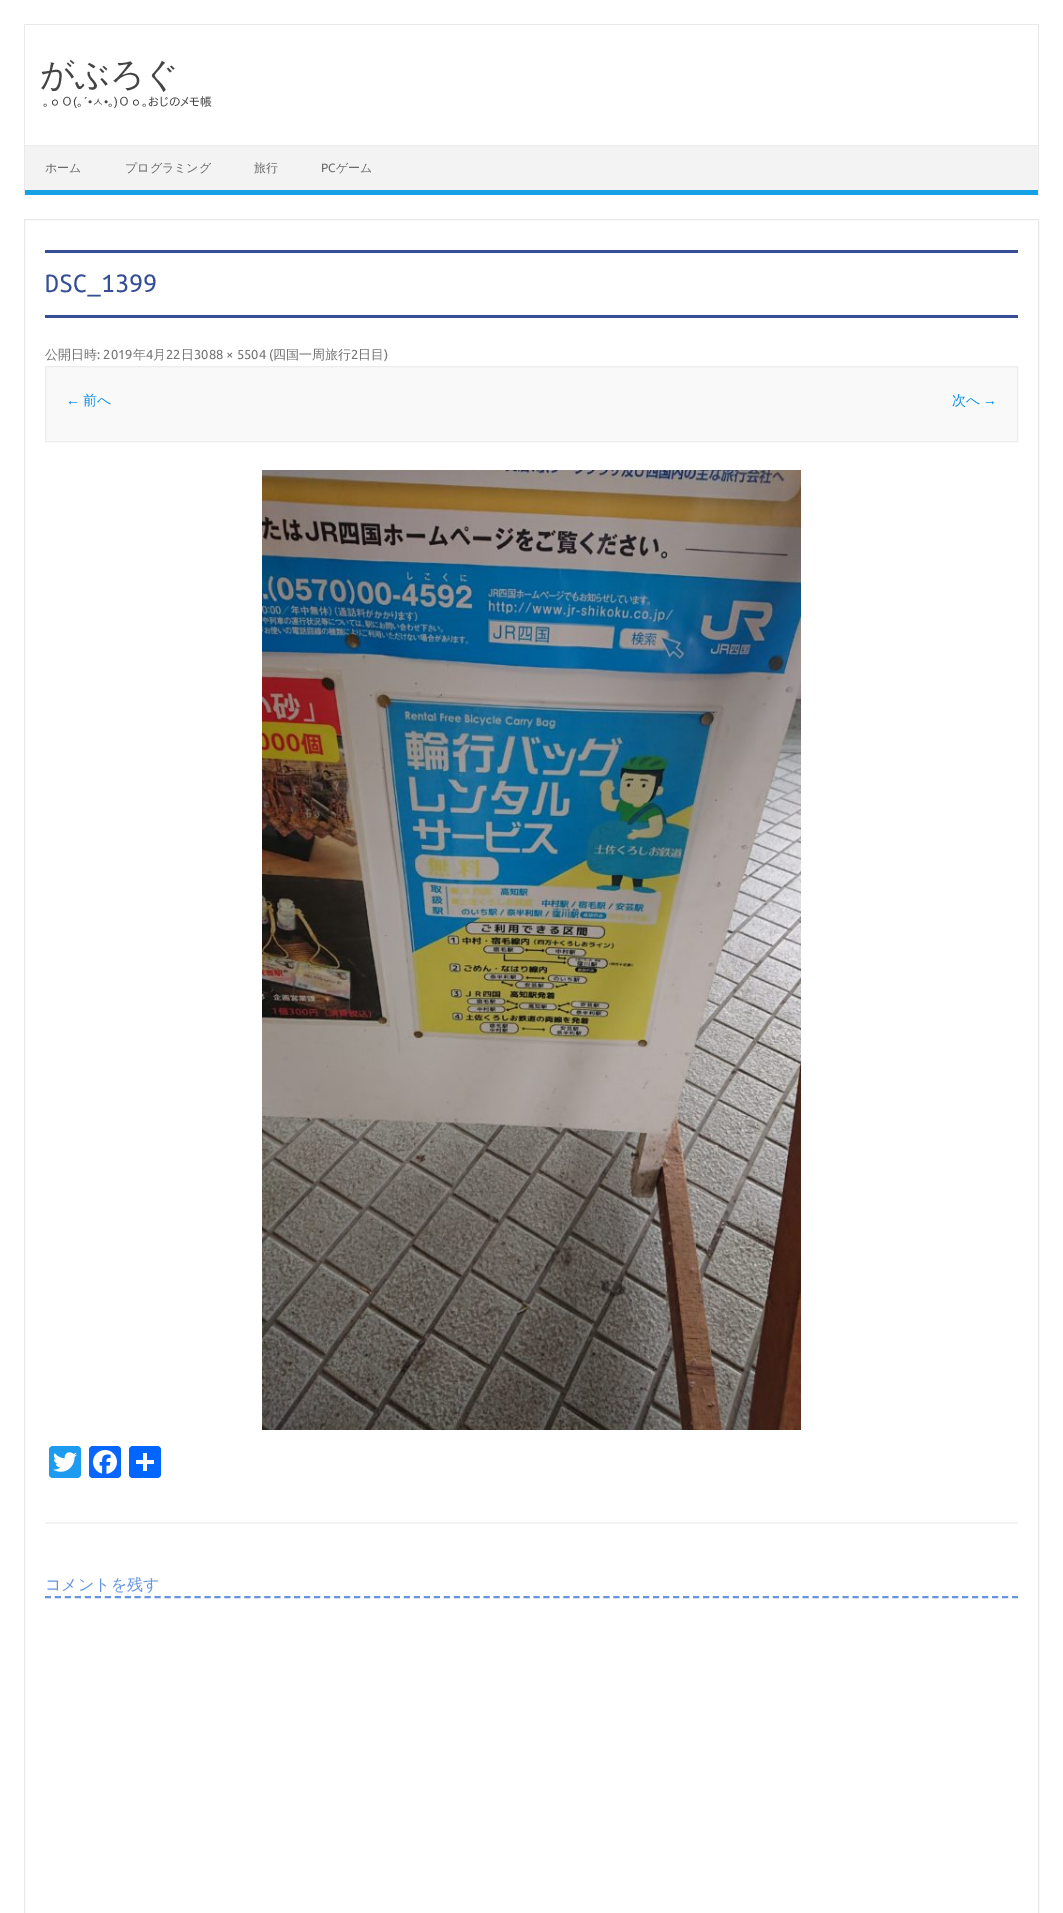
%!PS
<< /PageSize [1063 1913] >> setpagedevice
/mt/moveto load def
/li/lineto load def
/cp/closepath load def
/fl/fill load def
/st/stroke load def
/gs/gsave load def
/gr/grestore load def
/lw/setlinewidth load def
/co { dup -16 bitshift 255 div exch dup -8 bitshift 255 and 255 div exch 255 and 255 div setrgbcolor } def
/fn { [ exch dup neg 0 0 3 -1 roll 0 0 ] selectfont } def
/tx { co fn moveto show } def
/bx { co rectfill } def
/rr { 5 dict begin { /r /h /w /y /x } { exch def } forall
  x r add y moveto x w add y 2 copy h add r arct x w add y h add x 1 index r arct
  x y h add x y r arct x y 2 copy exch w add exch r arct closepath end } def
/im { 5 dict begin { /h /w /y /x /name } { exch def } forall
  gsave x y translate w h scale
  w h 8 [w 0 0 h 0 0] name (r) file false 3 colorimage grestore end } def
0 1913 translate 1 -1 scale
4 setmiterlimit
0 0 1063 1913 16#FFFFFF bx
24 24 1015 1 16#E9E9E9 bx
1038 24 1 171 16#E9E9E9 bx
24 24 1 171 16#E9E9E9 bx
25 146 1013 44 16#F3F3F3 bx
25 145 1013 1 16#EDEDED bx
25 190 1013 5 16#16A1E7 bx
16#E9E9E9 co
24.5 219.5 1014 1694 rectstroke
45 1522 973 2 16#F3F3F3 bx
45 250 973 3 16#364E96 bx
45 315 973 3 16#364E96 bx
16#F9F9F9 co
45.5 366.5 mt 1017.5 366.5 li 1017.5 441.5 li 45.5 441.5 li cp gs fl gr
16#EDEDED co
st
(media/1.raw) 262 470 539 960 im
16#1D9BF0 co
49 1446 32 32 4 rr fl
(media/2.raw) 53 1452 24 20 im
16#0866FF co
89 1446 32 32 4 rr fl
(media/3.raw) 93 1450 24 24 im
16#0166FF co
129 1446 32 32 4 rr fl
143 1453 4 18 16#FFFFFF bx
136 1460 18 4 16#FFFFFF bx
16#6594E0 co
2 lw
[6 3.97] 0 setdash
45 1597 mt 1018 1597 li st
(がぶろぐ) 40 86 /WenQuanYiZenHei-Medium 34 16#444444 tx
(｡оО) 43 106 /IPAPGothic-Regular 12 16#444444 tx
(\() 73 106 /Ubuntu-Regular 12 16#444444 tx
(´•) 83 106 /Ubuntu-Regular 12 16#444444 tx
(ㅅ) 92 106 /WenQuanYiZenHei-Medium 12 16#444444 tx
(•) 104 106 /Ubuntu-Regular 12 16#444444 tx
(\)) 114 106 /Ubuntu-Regular 12 16#444444 tx
(Оо。おじのメモ帳) 118 106 /IPAPGothic-Regular 12 16#444444 tx
(｡) 77 106 /IPAPGothic-Regular 12 16#444444 tx
(｡) 108 106 /IPAPGothic-Regular 12 16#444444 tx
(ホーム) 45 172 /WenQuanYiZenHei-Medium 12 16#6A6A6A tx
(プログラミング) 125 172 /WenQuanYiZenHei-Medium 12 16#6A6A6A tx
(旅行) 254 172 /WenQuanYiZenHei-Medium 12 16#6A6A6A tx
(PC) 321 172 /Ubuntu-Regular 12 16#6A6A6A tx
(ゲーム) 336 172 /WenQuanYiZenHei-Medium 12 16#6A6A6A tx
(DSC_1399) 45 292 /UbuntuMono-Regular 28 16#364E96 tx
(公開日時) 45 359 /WenQuanYiZenHei-Medium 13 16#757575 tx
(: 2019) 97 359 /Ubuntu-Regular 13 16#757575 tx
(年) 133 359 /WenQuanYiZenHei-Medium 13 16#757575 tx
(4) 146 359 /Ubuntu-Regular 13 16#757575 tx
(月) 153 359 /WenQuanYiZenHei-Medium 13 16#757575 tx
(22) 166 359 /Ubuntu-Regular 13 16#757575 tx
(日) 181 359 /WenQuanYiZenHei-Medium 13 16#757575 tx
(3088 × 5504 \() 194 359 /Ubuntu-Regular 13 16#757575 tx
(四国一周旅行) 273 359 /WenQuanYiZenHei-Medium 13 16#757575 tx
(2) 351 359 /Ubuntu-Regular 13 16#757575 tx
(日目) 358 359 /WenQuanYiZenHei-Medium 13 16#757575 tx
(\)) 384 359 /Ubuntu-Regular 13 16#757575 tx
(←) 66 405 /LiberationSans-Regular 14 16#0B91EA tx
(前へ) 83 405 /WenQuanYiZenHei-Medium 14 16#0B91EA tx
(次へ) 952 405 /WenQuanYiZenHei-Medium 14 16#0B91EA tx
(→) 983 405 /LiberationSans-Regular 14 16#0B91EA tx
(コメントを残す) 45 1590 /WenQuanYiZenHei-Medium 16 16#6594E0 tx
showpage
